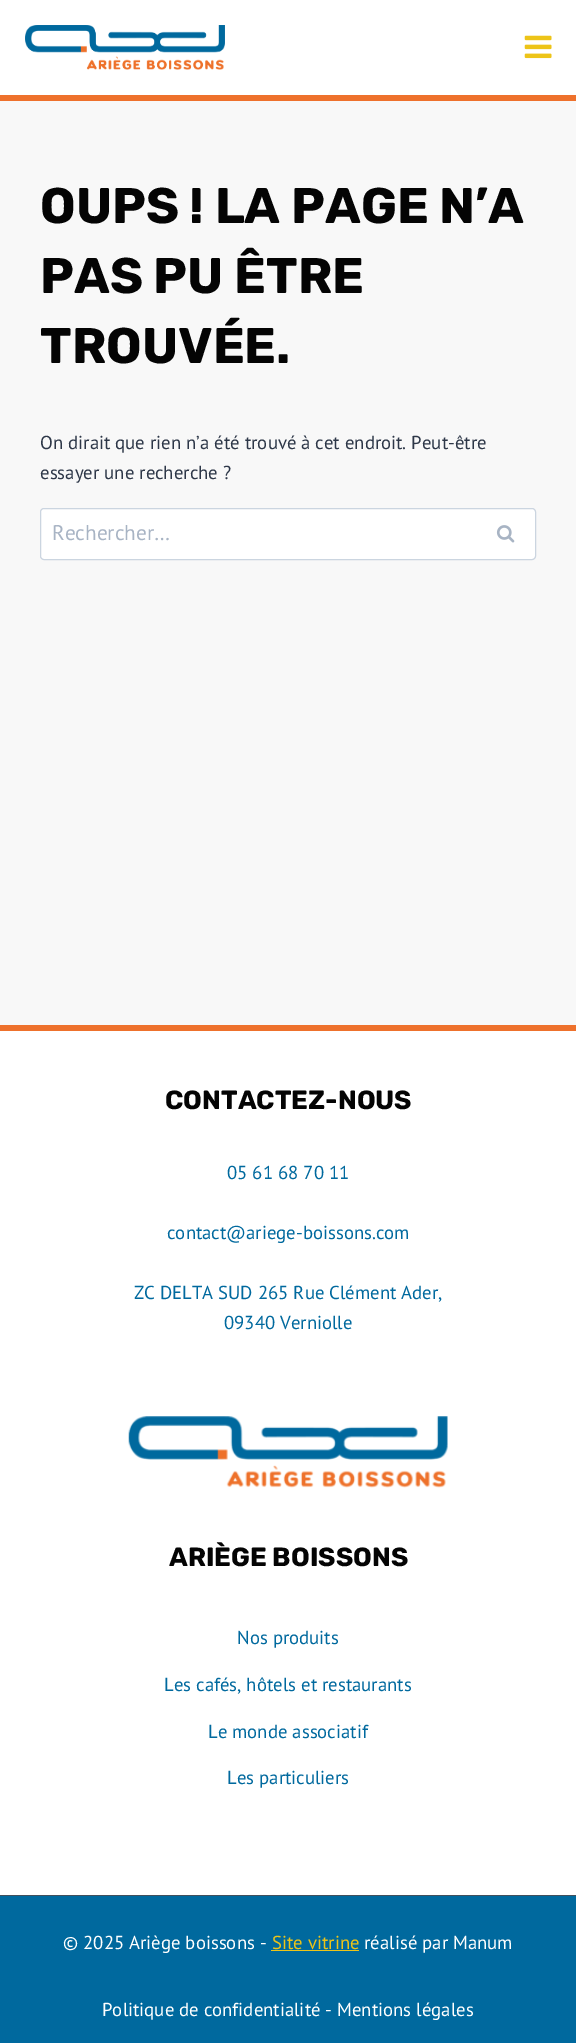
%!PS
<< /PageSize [576 2043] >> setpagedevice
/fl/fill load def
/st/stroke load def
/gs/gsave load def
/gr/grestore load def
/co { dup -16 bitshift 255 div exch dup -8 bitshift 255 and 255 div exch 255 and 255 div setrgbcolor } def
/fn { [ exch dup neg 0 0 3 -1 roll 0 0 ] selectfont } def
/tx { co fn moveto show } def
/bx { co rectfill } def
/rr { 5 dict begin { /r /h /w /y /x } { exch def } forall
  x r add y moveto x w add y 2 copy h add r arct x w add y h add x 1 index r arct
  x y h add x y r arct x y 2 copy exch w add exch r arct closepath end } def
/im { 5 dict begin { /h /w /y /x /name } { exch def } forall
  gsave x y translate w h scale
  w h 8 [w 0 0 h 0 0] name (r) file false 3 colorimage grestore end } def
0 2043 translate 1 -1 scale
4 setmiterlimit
0 0 576 2043 16#F8F8F8 bx
0 0 576 95 16#FFFFFF bx
0 95 576 6 16#EE712C bx
(media/1.raw) 25 25 200 45 im
(media/2.raw) 524 35 28 24 im
16#FFFFFF co
40.5 508.5 495 51 3.5 rr gs fl gr
16#CBD5E0 co
st
(media/3.raw) 496 525 19 18 im
0 1896 576 147 16#00699E bx
0 1031 576 864 16#FFFFFF bx
0 1025 576 6 16#EE712C bx
(media/4.raw) 128 1416 320 72 im
0 1895 576 1 16#42505C bx
271 1950 88 1 16#EDC418 bx
(OUPS ! LA PAGE N’A) 40 223 /Rubik-Bold 50 16#040404 tx
(PAS PU ÊTRE) 40 293 /Rubik-Bold 50 16#040404 tx
(TROUVÉE.) 40 363 /Rubik-Bold 50 16#040404 tx
(On dirait que rien n’a été trouvé à cet endroit. Peut-être) 40 449 /PTSans-Regular 18.75 16#2D3748 tx
(essayer une recherche ?) 40 479 /PTSans-Regular 18.75 16#2D3748 tx
(Rechercher…) 52 540 /PTSans-Regular 21.25 16#A8B4C4 tx
(CONTACTEZ-NOUS) 165 1109 /Rubik-Bold 26.25 16#040404 tx
(05 61 68 70 11) 227 1179 /PTSans-Regular 18.75 16#00699E tx
(contact@ariege-boissons.com) 167 1239 /PTSans-Regular 18.75 16#00699E tx
(ZC DELTA SUD 265 Rue Clément Ader,) 134 1299 /PTSans-Regular 18.75 16#00699E tx
(09340 Verniolle) 224 1329 /PTSans-Regular 18.75 16#00699E tx
(ARIÈGE BOISSONS) 169 1566 /Rubik-Bold 26.25 16#040404 tx
(Nos produits) 237 1644 /PTSans-Regular 18.75 16#00699E tx
(Les cafés, hôtels et restaurants) 164 1691 /PTSans-Regular 18.75 16#00699E tx
(Le monde associatif) 208 1738 /PTSans-Regular 18.75 16#00699E tx
(Les particuliers) 227 1784 /PTSans-Regular 18.75 16#00699E tx
(© 2025 Ariège boissons -) 63 1949 /PTSans-Regular 18.75 16#FFFFFF tx
(Site vitrine) 272 1949 /PTSans-Regular 18.75 16#EDC418 tx
(réalisé par Manum) 364 1949 /PTSans-Regular 18.75 16#FFFFFF tx
(Politique de confidentialité - Mentions légales) 102 2016 /PTSans-Regular 18.75 16#FFFFFF tx
showpage
